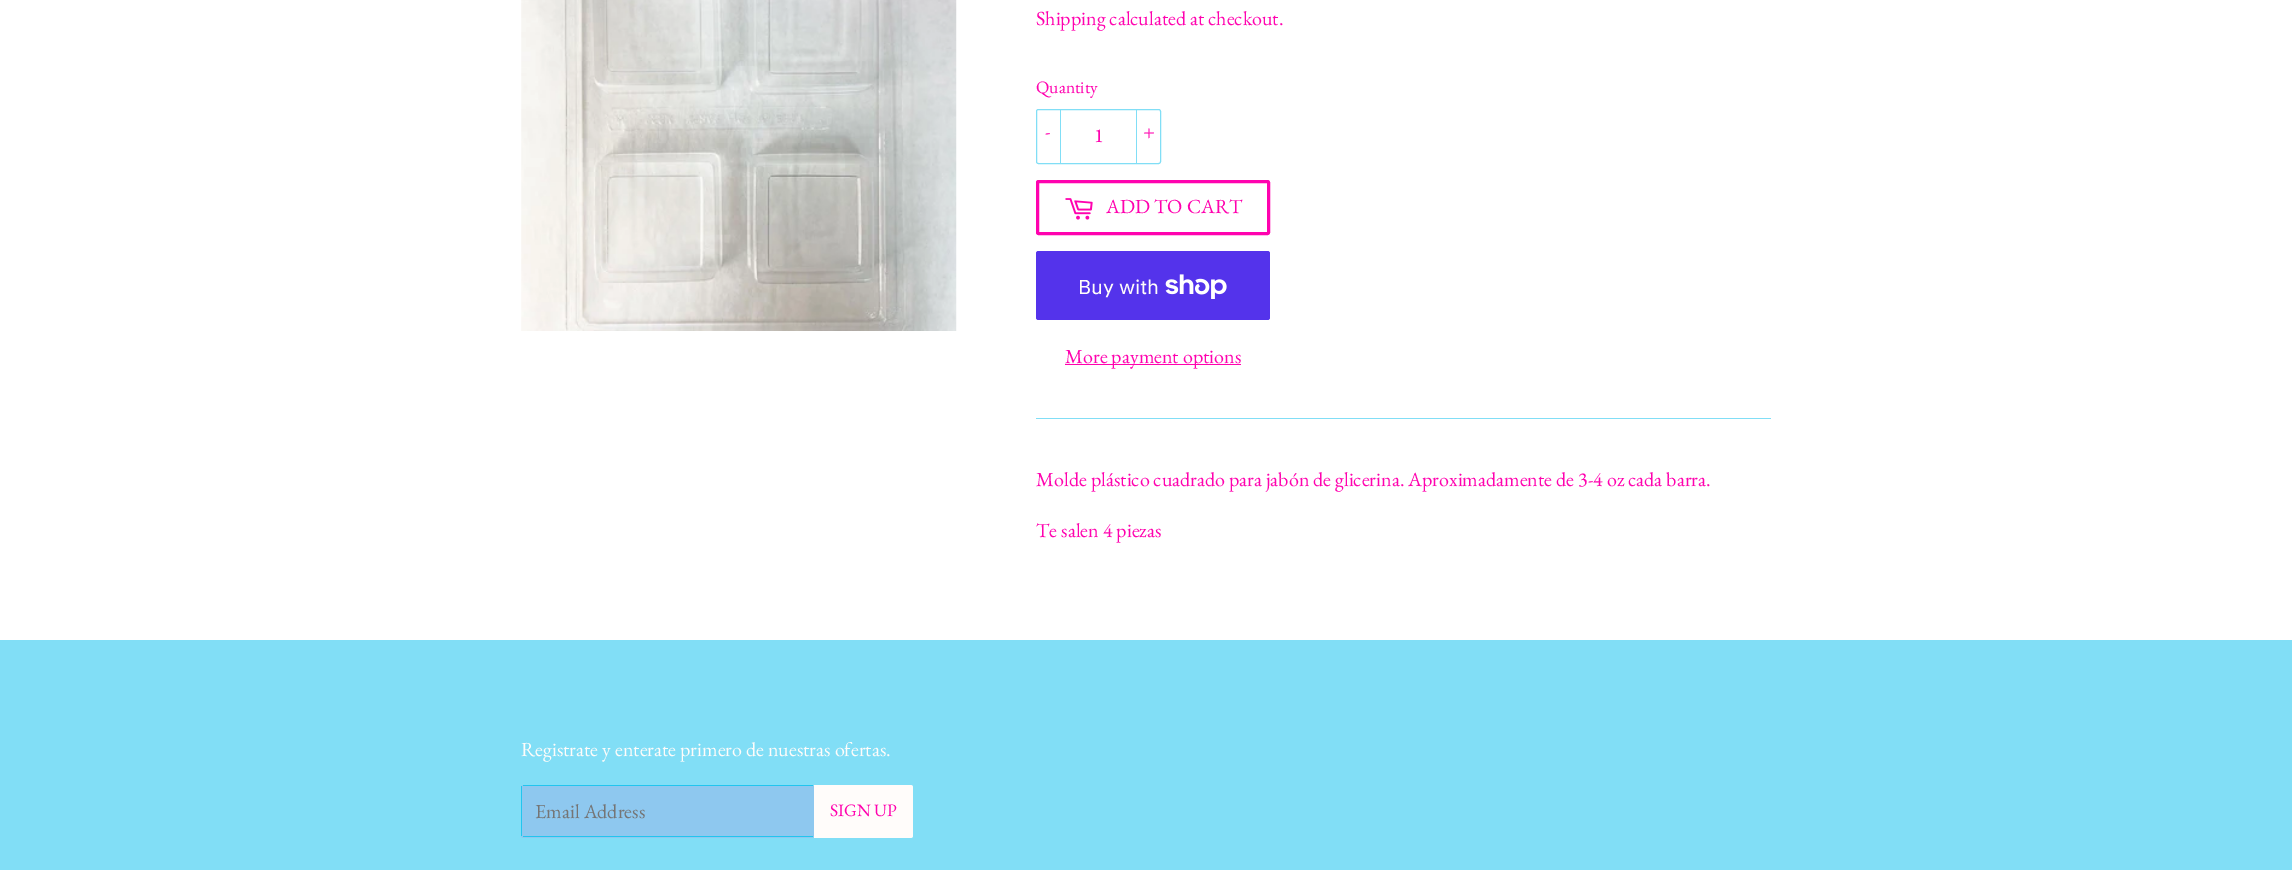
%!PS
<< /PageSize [2292 870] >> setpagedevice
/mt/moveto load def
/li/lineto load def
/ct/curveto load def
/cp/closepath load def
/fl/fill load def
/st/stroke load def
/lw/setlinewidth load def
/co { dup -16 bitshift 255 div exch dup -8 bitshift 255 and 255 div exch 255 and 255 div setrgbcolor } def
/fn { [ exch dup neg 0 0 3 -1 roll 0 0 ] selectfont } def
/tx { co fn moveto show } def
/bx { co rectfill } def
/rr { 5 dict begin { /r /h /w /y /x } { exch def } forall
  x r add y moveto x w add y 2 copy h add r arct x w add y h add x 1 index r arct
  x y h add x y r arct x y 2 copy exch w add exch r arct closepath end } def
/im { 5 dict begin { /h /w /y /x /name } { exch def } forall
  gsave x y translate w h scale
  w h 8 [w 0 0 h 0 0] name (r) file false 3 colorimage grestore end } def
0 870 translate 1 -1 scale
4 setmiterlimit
0 0 2292 870 16#FFFFFF bx
(media/1.raw) 521 0 436 331 im
16#81DEF6 co
1036.5 109.5 124 54 2 rr st
1060 109 1 55 16#81DEF6 bx
1136 109 1 55 16#81DEF6 bx
16#FF02AF co
3 lw
1037.5 181.5 231 52 1 rr st
(media/2.raw) 1065 198 28 22 im
16#5433EB co
1036 251 234 69 2.5 rr fl
(media/3.raw) 1165 274 62 25 im
1065 364 176 1 16#FF02AF bx
1036 418 735 1 16#81DEF6 bx
0 640 2292 230 16#81DEF6 bx
16#8EC8EF co
521 785 293 53 2.5 rr fl
523 785 290 1 16#22C5EF bx
523 836 290 1 16#22C5EF bx
521 786 1 50 16#22C5EF bx
16#FFFCFA co
814 785 mt 910.5 785 li 912 785 913 786 913 787.5 ct 913 835.5 li 913 837 912 838 910.5 838 ct 814 838 li cp fl
(Shipping calculated at checkout.) 1036 25 /EBGaramond-Regular 20 16#FF02AF tx
(Quantity) 1036 93 /EBGaramond-Regular 17.5 16#FF02AF tx
(-) 1045 138 /EBGaramond-Regular 20 16#FF02AF tx
(1) 1094 142 /EBGaramond-Regular 20 16#FF02AF tx
(+) 1143 138 /EBGaramond-Regular 20 16#FF02AF tx
(ADD TO CART) 1106 213 /EBGaramond-Regular 20 16#FF02AF tx
(Buy with) 1078 294 /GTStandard-Regular 20 16#FFFCFA tx
(More payment options) 1065 363 /EBGaramond-Regular 20 16#FF02AF tx
(Molde plástico cuadrado para jabón de glicerina. Aproximadamente de 3-4 oz cada barra.) 1036 486 /EBGaramond-Regular 20 16#FF02AF tx
(Te salen 4 piezas) 1036 537 /EBGaramond-Regular 20 16#FF02AF tx
(Registrate y enterate primero de nuestras ofertas.) 521 756 /EBGaramond-Regular 20 16#FFFCFA tx
(Email Address) 535 818 /EBGaramond-Regular 20 16#757575 tx
(SIGN UP) 830 816 /EBGaramond-Regular 17.5 16#FF02AF tx
showpage
